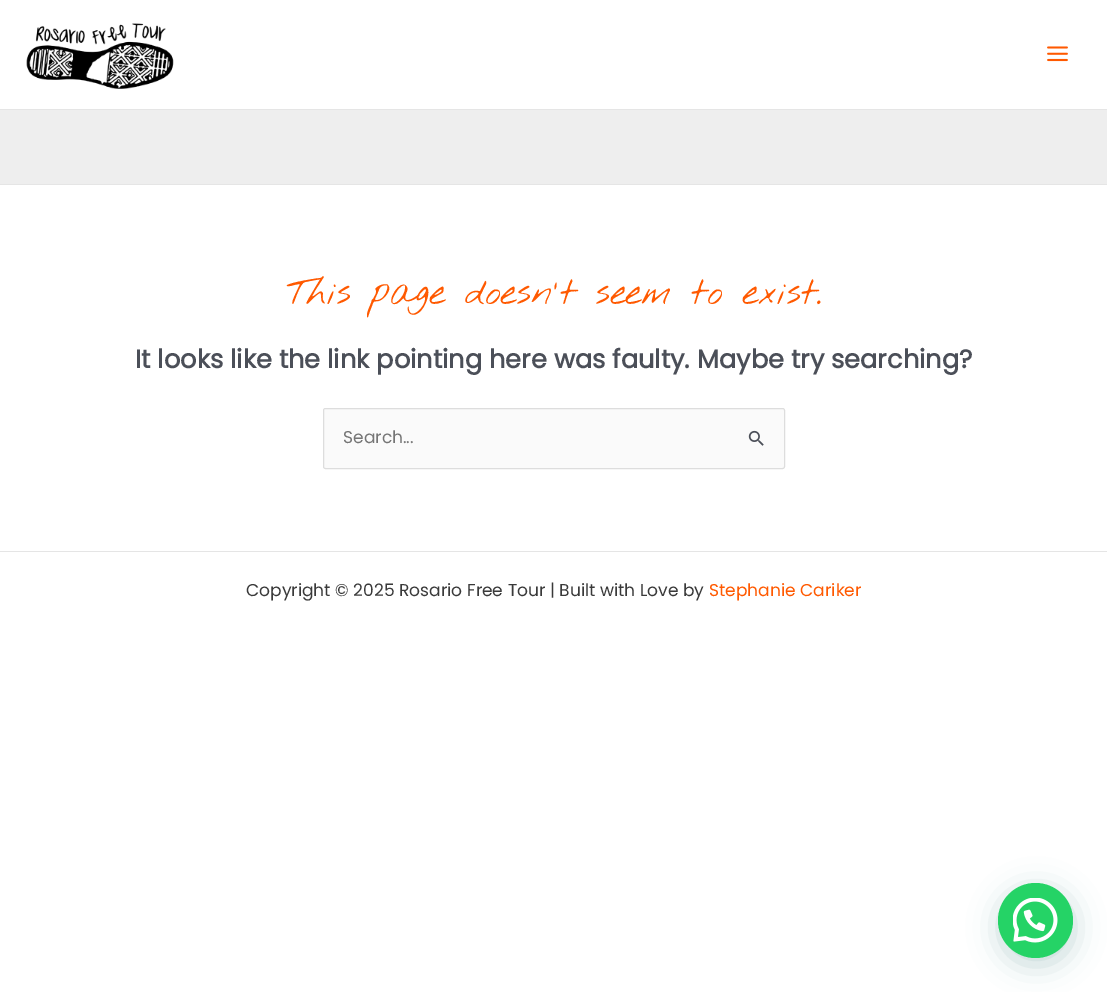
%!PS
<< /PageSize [1107 992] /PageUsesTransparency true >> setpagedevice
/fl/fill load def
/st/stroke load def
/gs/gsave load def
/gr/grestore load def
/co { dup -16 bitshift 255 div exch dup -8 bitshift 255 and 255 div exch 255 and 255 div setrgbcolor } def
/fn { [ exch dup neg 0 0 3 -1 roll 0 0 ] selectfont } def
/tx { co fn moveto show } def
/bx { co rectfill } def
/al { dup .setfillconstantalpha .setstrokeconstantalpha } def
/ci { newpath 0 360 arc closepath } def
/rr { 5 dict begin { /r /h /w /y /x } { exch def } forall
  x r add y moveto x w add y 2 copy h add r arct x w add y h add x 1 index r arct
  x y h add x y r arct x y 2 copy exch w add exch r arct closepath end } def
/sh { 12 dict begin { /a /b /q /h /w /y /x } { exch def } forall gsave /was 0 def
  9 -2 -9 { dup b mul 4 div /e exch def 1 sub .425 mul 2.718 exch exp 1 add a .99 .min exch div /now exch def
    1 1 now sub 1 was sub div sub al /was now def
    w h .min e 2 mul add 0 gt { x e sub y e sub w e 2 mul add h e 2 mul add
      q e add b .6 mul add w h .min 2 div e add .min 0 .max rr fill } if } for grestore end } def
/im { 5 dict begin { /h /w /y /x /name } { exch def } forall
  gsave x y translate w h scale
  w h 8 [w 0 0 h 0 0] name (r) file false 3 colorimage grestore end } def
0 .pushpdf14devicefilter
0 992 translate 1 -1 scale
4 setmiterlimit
0 0 1107 992 16#FFFFFF bx
0 109 1107 1 16#E5E5E5 bx
(media/1.raw) 26 23 148 66 im
(media/2.raw) 1047 46 21 16 im
0 110 1107 74 16#EEEEEE bx
0 184 1107 1 16#E5E5E5 bx
16#FAFAFA co
323.5 408.5 461 60 2 rr gs fl gr
16#DDDDDD co
st
(media/3.raw) 748 430 16 16 im
0 551 1107 1 16#E5E5E5 bx
16#075E54 co
999 890 75 75 37.5 15 .24 sh
16#25D366 co
1035.5 920.5 37.5 ci fl
(media/4.raw) 1013 898 45 45 im
(This page doesn't seem to exist.) 286 304 /NothingYouCouldDo-Thin 37.5 16#FF5900 tx
(It looks like the link pointing here was faulty. Maybe try searching?) 135 368 /Poppins-Bold 25.65 16#4B4F58 tx
(Search...) 343 443 /Poppins-Regular 17.1 16#757575 tx
(Copyright © 2025 Rosario Free Tour | Built with Love by) 246 596 /Poppins-Regular 17.1 16#3A3A3A tx
(Stephanie Cariker) 709 596 /Poppins-Regular 17.1 16#FF5900 tx
.poppdf14devicefilter showpage
